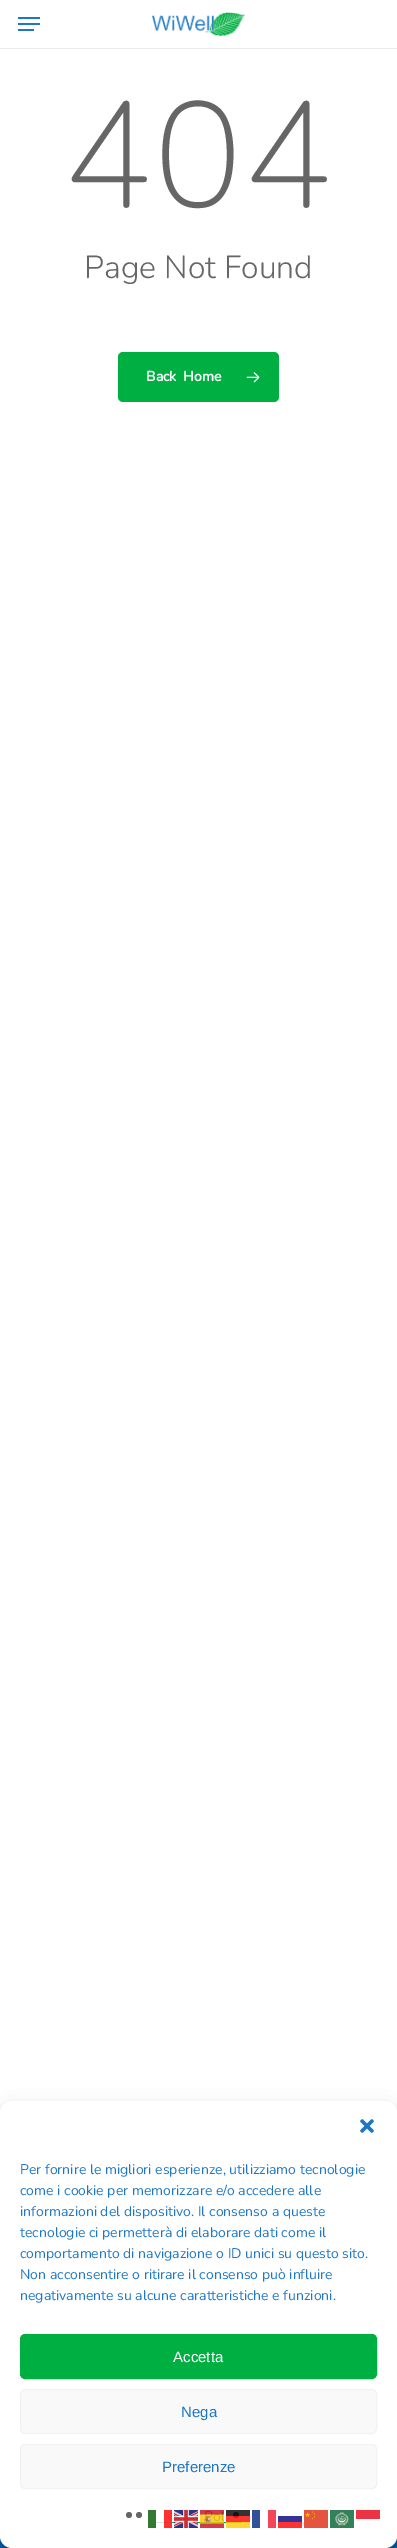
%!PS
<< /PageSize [397 2548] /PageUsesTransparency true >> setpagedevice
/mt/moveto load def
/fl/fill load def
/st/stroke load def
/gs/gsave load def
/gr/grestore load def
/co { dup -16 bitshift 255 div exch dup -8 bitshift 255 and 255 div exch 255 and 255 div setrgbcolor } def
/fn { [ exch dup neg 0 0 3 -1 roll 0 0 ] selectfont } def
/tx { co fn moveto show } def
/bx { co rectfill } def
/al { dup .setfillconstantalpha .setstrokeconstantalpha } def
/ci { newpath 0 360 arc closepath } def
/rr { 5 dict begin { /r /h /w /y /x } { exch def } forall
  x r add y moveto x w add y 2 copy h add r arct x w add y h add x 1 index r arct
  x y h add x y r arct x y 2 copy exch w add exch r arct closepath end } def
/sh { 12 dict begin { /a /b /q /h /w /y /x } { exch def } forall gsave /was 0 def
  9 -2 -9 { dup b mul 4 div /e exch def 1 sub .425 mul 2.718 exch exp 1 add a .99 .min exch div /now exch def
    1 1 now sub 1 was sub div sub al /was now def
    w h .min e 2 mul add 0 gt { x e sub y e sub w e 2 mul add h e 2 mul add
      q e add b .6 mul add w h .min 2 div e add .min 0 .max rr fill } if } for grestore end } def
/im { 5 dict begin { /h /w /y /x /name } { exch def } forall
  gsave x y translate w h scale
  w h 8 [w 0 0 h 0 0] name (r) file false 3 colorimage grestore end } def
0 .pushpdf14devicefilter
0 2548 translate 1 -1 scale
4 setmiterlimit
0 0 397 2548 16#FFFFFF bx
0 48 397 1 16#EBEBEB bx
18 17 22 2 16#1D77C4 bx
18 29 16 2 16#1D77C4 bx
18 23 22 2 16#1D77C4 bx
(media/1.raw) 152 12 93 24 im
16#00AF42 co
118 352 161 50 5 rr fl
(media/2.raw) 246 372 14 11 im
0 2536 397 12 16#0068C4 bx
16#000000 co
0 2107 397 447 12 3 .23 sh
0 2111 397 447 12 10 .19 sh
16#FFFFFF co
0 2101 397 447 12 rr fl
(media/3.raw) 360 2119 14 14 im
16#00AF42 co
20.5 2334.5 356 44 4.5 rr gs fl gr
st
16#F9F9F9 co
20.5 2389.5 356 44 4.5 rr gs fl gr
16#F2F2F2 co
st
16#F9F9F9 co
20.5 2444.5 356 44 4.5 rr gs fl gr
16#F2F2F2 co
st
16#666666 co
129 2515 3 ci fl
139 2515 3 ci fl
155 2522 87 1 16#00AF42 bx
16#666666 co
236 2515 3 ci fl
0.8 al
155 2522 17 1 16#FFFFFF bx
148 2510 8 18 16#005700 bx
164 2510 8 18 16#FC0000 bx
1 al
(media/4.raw) 174 2510 24 18 im
(media/5.raw) 200 2510 24 18 im
0.8 al
226 2510 24 6 16#000000 bx
1 al
252 2510 8 18 16#335199 bx
268 2510 8 18 16#F54659 bx
(media/6.raw) 304 2510 24 18 im
(media/7.raw) 330 2510 24 18 im
356 2510 24 9 16#EC3341 bx
0.8 al
226 2516 24 6 16#FF0000 bx
1 al
278 2516 24 6 16#343498 bx
0.8 al
226 2522 24 6 16#FFCC00 bx
1 al
278 2522 24 6 16#FE3434 bx
(404) 63 207 /Nunito-ExtraLight 150 16#666666 tx
(Page Not Found) 84 278 /Nunito-Light 32 16#666666 tx
/Nunito-Bold 14 fn
16#FFFFFF co
146 381 mt 3 0 32 (Back Home) widthshow
(Per fornire le migliori esperienze, utilizziamo tecnologie) 20 2174 /Nunito-Regular 14 16#1D77C4 tx
(come i cookie per memorizzare e/o accedere alle) 20 2195 /Nunito-Regular 14 16#1D77C4 tx
(informazioni del dispositivo. Il consenso a queste) 20 2216 /Nunito-Regular 14 16#1D77C4 tx
(tecnologie ci permetterà di elaborare dati come il) 20 2237 /Nunito-Regular 14 16#1D77C4 tx
(comportamento di navigazione o ID unici su questo sito.) 20 2258 /Nunito-Regular 14 16#1D77C4 tx
(Non acconsentire o ritirare il consenso può influire) 20 2279 /Nunito-Regular 14 16#1D77C4 tx
(negativamente su alcune caratteristiche e funzioni.) 20 2300 /Nunito-Regular 14 16#1D77C4 tx
(Accetta) 173 2362 /LiberationSans-Regular 15 16#FFFFFF tx
(Nega) 181 2417 /LiberationSans-Regular 15 16#1D77C4 tx
(Preferenze) 162 2472 /LiberationSans-Regular 15 16#1D77C4 tx
.poppdf14devicefilter showpage
